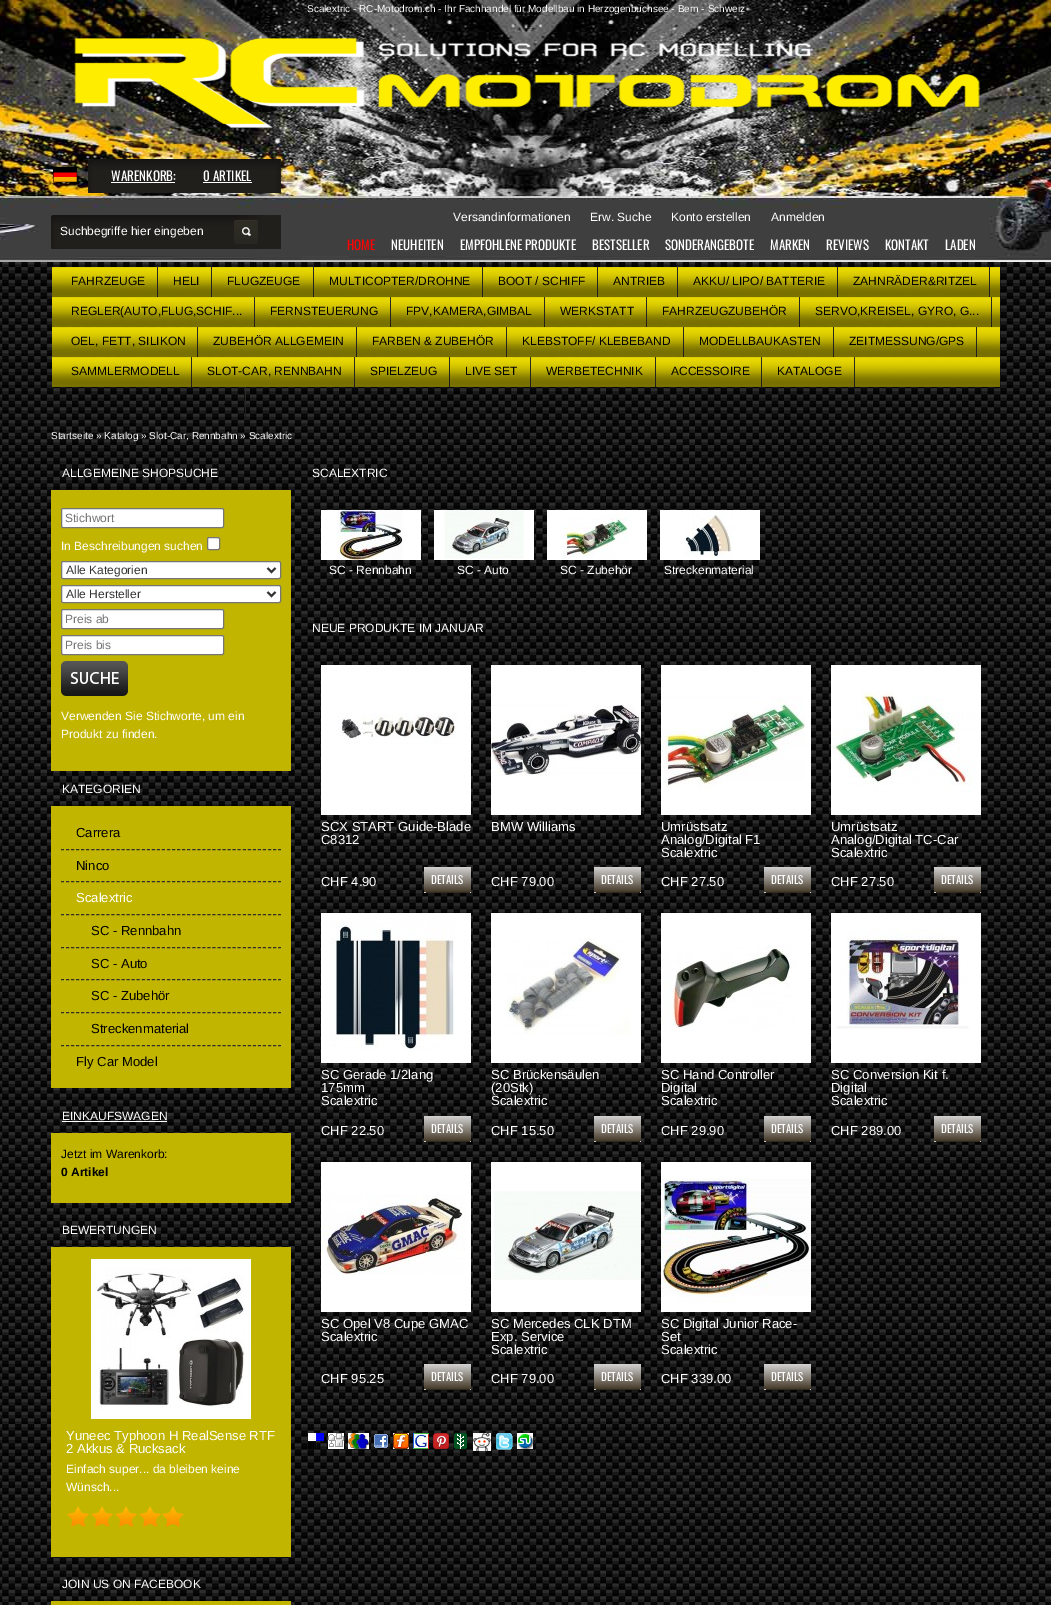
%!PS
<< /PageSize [1051 1605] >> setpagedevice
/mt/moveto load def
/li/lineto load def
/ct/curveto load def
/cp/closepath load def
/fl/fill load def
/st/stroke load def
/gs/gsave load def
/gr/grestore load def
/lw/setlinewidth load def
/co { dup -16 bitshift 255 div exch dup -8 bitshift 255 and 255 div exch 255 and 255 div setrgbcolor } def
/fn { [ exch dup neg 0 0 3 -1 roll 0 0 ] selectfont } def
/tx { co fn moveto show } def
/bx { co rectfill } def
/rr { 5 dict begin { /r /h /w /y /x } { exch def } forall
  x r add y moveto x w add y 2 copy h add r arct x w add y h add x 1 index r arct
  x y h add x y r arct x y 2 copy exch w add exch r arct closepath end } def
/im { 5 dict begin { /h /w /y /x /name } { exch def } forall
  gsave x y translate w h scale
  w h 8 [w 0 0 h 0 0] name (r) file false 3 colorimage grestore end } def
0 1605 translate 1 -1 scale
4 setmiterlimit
0 0 1051 1605 16#FFFFFF bx
(media/1.raw) 0 262 1051 1343 im
(media/2.raw) 0 0 1051 262 im
(media/3.raw) 74 38 906 90 im
(media/4.raw) 53 167 24 15 im
(media/5.raw) 88 159 193 34 im
111 182 64 1 16#FFFFFF bx
203 182 49 1 16#FFFFFF bx
(media/6.raw) 51 215 230 34 im
(media/7.raw) 234 220 24 24 im
(media/8.raw) 52 267 948 120 im
(media/9.raw) 157 267 1 30 im
(media/9.raw) 211 267 1 30 im
(media/9.raw) 313 267 1 30 im
(media/9.raw) 482 267 1 30 im
(media/9.raw) 597 267 1 30 im
(media/9.raw) 677 267 1 30 im
(media/9.raw) 837 267 1 30 im
(media/9.raw) 989 267 1 30 im
(media/9.raw) 254 297 1 30 im
(media/9.raw) 390 297 1 30 im
(media/9.raw) 544 297 1 30 im
(media/9.raw) 646 297 1 30 im
(media/9.raw) 799 297 1 30 im
(media/9.raw) 991 297 1 30 im
(media/9.raw) 197 327 1 30 im
(media/9.raw) 356 327 1 30 im
(media/9.raw) 506 327 1 30 im
(media/9.raw) 683 327 1 30 im
(media/9.raw) 833 327 1 30 im
(media/9.raw) 976 327 1 30 im
(media/9.raw) 191 357 1 30 im
(media/9.raw) 354 357 1 30 im
(media/9.raw) 449 357 1 30 im
(media/9.raw) 530 357 1 30 im
(media/9.raw) 655 357 1 30 im
(media/9.raw) 761 357 1 30 im
(media/9.raw) 854 357 1 30 im
(media/9.raw) 245 387 1 30 im
51 490 240 281 16#C2B500 bx
16#FFFFFF co
61.5 508.5 162 19 1.5 rr gs fl gr
16#767676 co
st
16#FFFFFF co
207.5 537.5 12 12 1.5 rr gs fl gr
16#767676 co
st
16#FFFFFF co
61.5 561.5 219 17 1.5 rr gs fl gr
16#767676 co
st
16#333333 co
2 lw
267.5 568 mt 271.5 572 li 275.5 568 li st
16#FFFFFF co
61.5 585.5 219 17 1.5 rr gs fl gr
16#767676 co
1 lw
st
16#333333 co
2 lw
267.5 592 mt 271.5 596 li 275.5 592 li st
16#FFFFFF co
61.5 609.5 162 19 1.5 rr gs fl gr
16#767676 co
1 lw
st
16#FFFFFF co
61.5 635.5 162 19 1.5 rr gs fl gr
16#767676 co
st
(media/10.raw) 61 661 67 35 im
51 806 240 282 16#C2B500 bx
16#302F28 co
[3 2.05] 0 setdash
61 849.5 mt 281 849.5 li st
61 881.5 mt 281 881.5 li st
61 914.5 mt 281 914.5 li st
61 947.5 mt 281 947.5 li st
61 979.5 mt 281 979.5 li st
61 1012.5 mt 281 1012.5 li st
61 1045.5 mt 281 1045.5 li st
62 1121 105 1 16#FFFFFF bx
51 1133 240 70 16#C2B500 bx
51 1247 240 310 16#C2B500 bx
91 1259 160 160 16#FFFFFF bx
(media/11.raw) 92 1268 159 141 im
(media/12.raw) 67 1506 117 21 im
51 1601 240 4 16#C2B500 bx
321 510 100 50 16#FFFFFF bx
(media/13.raw) 337 510 66 50 im
434 510 100 50 16#FFFFFF bx
(media/14.raw) 444 510 80 49 im
547 510 100 50 16#FFFFFF bx
(media/15.raw) 563 513 65 45 im
660 510 100 50 16#FFFFFF bx
(media/16.raw) 684 510 49 48 im
321 665 150 150 16#FFFFFF bx
(media/17.raw) 337 713 120 32 im
gs
424 867 47 26 3 rr clip newpath
gs 427 867 mt 468 867 li 469.5 867 471 868.5 471 870 ct 471 892 li 424 892 li 424 870 li 424 868.5 425.5 867 427 867 ct cp clip newpath
<< /ShadingType 2 /ColorSpace /DeviceRGB /Coords [448 867 448 892] /Extend [true true] /Function << /FunctionType 2 /Domain [0 1] /C0 [.827 .827 .827] /C1 [.271 .227 .161] /N 1 >> >> shfill gr
gs 424 892 mt 471 892 li 471 893 li 424 893 li cp clip newpath
<< /ShadingType 2 /ColorSpace /DeviceRGB /Coords [448 892 448 917] /Extend [true true] /Function << /FunctionType 2 /Domain [0 1] /C0 [.827 .827 .827] /C1 [.271 .227 .161] /N 1 >> >> shfill gr
gr
426 892 44 1 16#322A1E bx
491 665 150 150 16#FFFFFF bx
(media/18.raw) 491 705 150 72 im
gs
594 867 47 26 3 rr clip newpath
gs 597 867 mt 638 867 li 639.5 867 641 868.5 641 870 ct 641 892 li 594 892 li 594 870 li 594 868.5 595.5 867 597 867 ct cp clip newpath
<< /ShadingType 2 /ColorSpace /DeviceRGB /Coords [618 867 618 892] /Extend [true true] /Function << /FunctionType 2 /Domain [0 1] /C0 [.827 .827 .827] /C1 [.271 .227 .161] /N 1 >> >> shfill gr
gs 594 892 mt 641 892 li 641 893 li 594 893 li cp clip newpath
<< /ShadingType 2 /ColorSpace /DeviceRGB /Coords [618 892 618 917] /Extend [true true] /Function << /FunctionType 2 /Domain [0 1] /C0 [.827 .827 .827] /C1 [.271 .227 .161] /N 1 >> >> shfill gr
gr
596 892 44 1 16#322A1E bx
661 665 150 150 16#FFFFFF bx
(media/19.raw) 661 697 144 93 im
gs
764 867 47 26 3 rr clip newpath
gs 767 867 mt 808 867 li 809.5 867 811 868.5 811 870 ct 811 892 li 764 892 li 764 870 li 764 868.5 765.5 867 767 867 ct cp clip newpath
<< /ShadingType 2 /ColorSpace /DeviceRGB /Coords [788 867 788 892] /Extend [true true] /Function << /FunctionType 2 /Domain [0 1] /C0 [.827 .827 .827] /C1 [.271 .227 .161] /N 1 >> >> shfill gr
gs 764 892 mt 811 892 li 811 893 li 764 893 li cp clip newpath
<< /ShadingType 2 /ColorSpace /DeviceRGB /Coords [788 892 788 917] /Extend [true true] /Function << /FunctionType 2 /Domain [0 1] /C0 [.827 .827 .827] /C1 [.271 .227 .161] /N 1 >> >> shfill gr
gr
766 892 44 1 16#322A1E bx
831 665 150 150 16#FFFFFF bx
(media/20.raw) 831 690 144 103 im
gs
934 867 47 26 3 rr clip newpath
gs 937 867 mt 978 867 li 979.5 867 981 868.5 981 870 ct 981 892 li 934 892 li 934 870 li 934 868.5 935.5 867 937 867 ct cp clip newpath
<< /ShadingType 2 /ColorSpace /DeviceRGB /Coords [958 867 958 892] /Extend [true true] /Function << /FunctionType 2 /Domain [0 1] /C0 [.827 .827 .827] /C1 [.271 .227 .161] /N 1 >> >> shfill gr
gs 934 892 mt 981 892 li 981 893 li 934 893 li cp clip newpath
<< /ShadingType 2 /ColorSpace /DeviceRGB /Coords [958 892 958 917] /Extend [true true] /Function << /FunctionType 2 /Domain [0 1] /C0 [.827 .827 .827] /C1 [.271 .227 .161] /N 1 >> >> shfill gr
gr
936 892 44 1 16#322A1E bx
321 913 150 150 16#FFFFFF bx
(media/21.raw) 330 921 125 129 im
gs
424 1116 47 26 3 rr clip newpath
gs 427 1116 mt 468 1116 li 469.5 1116 471 1117.5 471 1119 ct 471 1141 li 424 1141 li 424 1119 li 424 1117.5 425.5 1116 427 1116 ct cp clip newpath
<< /ShadingType 2 /ColorSpace /DeviceRGB /Coords [448 1116 448 1141] /Extend [true true] /Function << /FunctionType 2 /Domain [0 1] /C0 [.827 .827 .827] /C1 [.271 .227 .161] /N 1 >> >> shfill gr
gs 424 1141 mt 471 1141 li 471 1142 li 424 1142 li cp clip newpath
<< /ShadingType 2 /ColorSpace /DeviceRGB /Coords [448 1141 448 1166] /Extend [true true] /Function << /FunctionType 2 /Domain [0 1] /C0 [.827 .827 .827] /C1 [.271 .227 .161] /N 1 >> >> shfill gr
gr
426 1141 44 1 16#322A1E bx
491 913 150 150 16#FFFFFF bx
(media/22.raw) 506 938 125 97 im
gs
594 1116 47 26 3 rr clip newpath
gs 597 1116 mt 638 1116 li 639.5 1116 641 1117.5 641 1119 ct 641 1141 li 594 1141 li 594 1119 li 594 1117.5 595.5 1116 597 1116 ct cp clip newpath
<< /ShadingType 2 /ColorSpace /DeviceRGB /Coords [618 1116 618 1141] /Extend [true true] /Function << /FunctionType 2 /Domain [0 1] /C0 [.827 .827 .827] /C1 [.271 .227 .161] /N 1 >> >> shfill gr
gs 594 1141 mt 641 1141 li 641 1142 li 594 1142 li cp clip newpath
<< /ShadingType 2 /ColorSpace /DeviceRGB /Coords [618 1141 618 1166] /Extend [true true] /Function << /FunctionType 2 /Domain [0 1] /C0 [.827 .827 .827] /C1 [.271 .227 .161] /N 1 >> >> shfill gr
gr
596 1141 44 1 16#322A1E bx
661 913 150 150 16#FFFFFF bx
(media/23.raw) 661 945 136 86 im
gs
764 1116 47 26 3 rr clip newpath
gs 767 1116 mt 808 1116 li 809.5 1116 811 1117.5 811 1119 ct 811 1141 li 764 1141 li 764 1119 li 764 1117.5 765.5 1116 767 1116 ct cp clip newpath
<< /ShadingType 2 /ColorSpace /DeviceRGB /Coords [788 1116 788 1141] /Extend [true true] /Function << /FunctionType 2 /Domain [0 1] /C0 [.827 .827 .827] /C1 [.271 .227 .161] /N 1 >> >> shfill gr
gs 764 1141 mt 811 1141 li 811 1142 li 764 1142 li cp clip newpath
<< /ShadingType 2 /ColorSpace /DeviceRGB /Coords [788 1141 788 1166] /Extend [true true] /Function << /FunctionType 2 /Domain [0 1] /C0 [.827 .827 .827] /C1 [.271 .227 .161] /N 1 >> >> shfill gr
gr
766 1141 44 1 16#322A1E bx
831 913 150 150 16#FFFFFF bx
(media/24.raw) 836 929 133 100 im
gs
934 1116 47 26 3 rr clip newpath
gs 937 1116 mt 978 1116 li 979.5 1116 981 1117.5 981 1119 ct 981 1141 li 934 1141 li 934 1119 li 934 1117.5 935.5 1116 937 1116 ct cp clip newpath
<< /ShadingType 2 /ColorSpace /DeviceRGB /Coords [958 1116 958 1141] /Extend [true true] /Function << /FunctionType 2 /Domain [0 1] /C0 [.827 .827 .827] /C1 [.271 .227 .161] /N 1 >> >> shfill gr
gs 934 1141 mt 981 1141 li 981 1142 li 934 1142 li cp clip newpath
<< /ShadingType 2 /ColorSpace /DeviceRGB /Coords [958 1141 958 1166] /Extend [true true] /Function << /FunctionType 2 /Domain [0 1] /C0 [.827 .827 .827] /C1 [.271 .227 .161] /N 1 >> >> shfill gr
gr
936 1141 44 1 16#322A1E bx
321 1162 150 150 16#FFFFFF bx
(media/25.raw) 321 1194 144 81 im
gs
424 1364 47 26 3 rr clip newpath
gs 427 1364 mt 468 1364 li 469.5 1364 471 1365.5 471 1367 ct 471 1389 li 424 1389 li 424 1367 li 424 1365.5 425.5 1364 427 1364 ct cp clip newpath
<< /ShadingType 2 /ColorSpace /DeviceRGB /Coords [448 1364 448 1389] /Extend [true true] /Function << /FunctionType 2 /Domain [0 1] /C0 [.827 .827 .827] /C1 [.271 .227 .161] /N 1 >> >> shfill gr
gs 424 1389 mt 471 1389 li 471 1390 li 424 1390 li cp clip newpath
<< /ShadingType 2 /ColorSpace /DeviceRGB /Coords [448 1389 448 1414] /Extend [true true] /Function << /FunctionType 2 /Domain [0 1] /C0 [.827 .827 .827] /C1 [.271 .227 .161] /N 1 >> >> shfill gr
gr
426 1389 44 1 16#322A1E bx
491 1162 150 150 16#FFFFFF bx
(media/26.raw) 491 1191 150 89 im
gs
594 1364 47 26 3 rr clip newpath
gs 597 1364 mt 638 1364 li 639.5 1364 641 1365.5 641 1367 ct 641 1389 li 594 1389 li 594 1367 li 594 1365.5 595.5 1364 597 1364 ct cp clip newpath
<< /ShadingType 2 /ColorSpace /DeviceRGB /Coords [618 1364 618 1389] /Extend [true true] /Function << /FunctionType 2 /Domain [0 1] /C0 [.827 .827 .827] /C1 [.271 .227 .161] /N 1 >> >> shfill gr
gs 594 1389 mt 641 1389 li 641 1390 li 594 1390 li cp clip newpath
<< /ShadingType 2 /ColorSpace /DeviceRGB /Coords [618 1389 618 1414] /Extend [true true] /Function << /FunctionType 2 /Domain [0 1] /C0 [.827 .827 .827] /C1 [.271 .227 .161] /N 1 >> >> shfill gr
gr
596 1389 44 1 16#322A1E bx
661 1162 150 150 16#FFFFFF bx
(media/27.raw) 661 1178 150 125 im
gs
764 1364 47 26 3 rr clip newpath
gs 767 1364 mt 808 1364 li 809.5 1364 811 1365.5 811 1367 ct 811 1389 li 764 1389 li 764 1367 li 764 1365.5 765.5 1364 767 1364 ct cp clip newpath
<< /ShadingType 2 /ColorSpace /DeviceRGB /Coords [788 1364 788 1389] /Extend [true true] /Function << /FunctionType 2 /Domain [0 1] /C0 [.827 .827 .827] /C1 [.271 .227 .161] /N 1 >> >> shfill gr
gs 764 1389 mt 811 1389 li 811 1390 li 764 1390 li cp clip newpath
<< /ShadingType 2 /ColorSpace /DeviceRGB /Coords [788 1389 788 1414] /Extend [true true] /Function << /FunctionType 2 /Domain [0 1] /C0 [.827 .827 .827] /C1 [.271 .227 .161] /N 1 >> >> shfill gr
gr
766 1389 44 1 16#322A1E bx
(media/28.raw) 308 1433 16 16 im
(media/29.raw) 328 1433 16 16 im
(media/30.raw) 348 1433 21 16 im
(media/31.raw) 374 1434 14 14 im
(media/32.raw) 393 1433 16 16 im
(media/33.raw) 413 1433 16 16 im
(media/34.raw) 433 1433 16 16 im
(media/35.raw) 454 1433 13 16 im
(media/36.raw) 473 1433 18 18 im
(media/37.raw) 496 1433 17 17 im
(media/38.raw) 517 1433 16 16 im
(Scalextric - RC-Motodrom.ch - Ihr Fachhandel für Modellbau in Herzogenbuchsee - Bern - Schweiz) 307 12 /LiberationSans-Regular 10 16#FFFFFF tx
(WARENKORB:) 111 181 /Oswald-Regular 13.1 16#FFFFFF tx
(0 ARTIKEL) 203 181 /Oswald-Regular 13.1 16#FFFFFF tx
(Versandinformationen) 453 221 /LiberationSans-Regular 12 16#FFFFFF tx
(Erw. Suche) 590 221 /LiberationSans-Regular 12 16#FFFFFF tx
(Konto erstellen) 671 221 /LiberationSans-Regular 12 16#FFFFFF tx
(Anmelden) 771 221 /LiberationSans-Regular 12 16#FFFFFF tx
(Suchbegriffe hier eingeben) 60 235 /LiberationSans-Regular 12 16#FFFFFF tx
(HOME) 347 250 /Oswald-Regular 13 16#FF0200 tx
(NEUHEITEN) 391 250 /Oswald-Regular 13 16#FFFFFF tx
(EMPFOHLENE PRODUKTE) 460 250 /Oswald-Regular 13 16#FFFFFF tx
(BESTSELLER) 592 250 /Oswald-Regular 13 16#FFFFFF tx
(SONDERANGEBOTE) 665 250 /Oswald-Regular 13 16#FFFFFF tx
(MARKEN) 770 250 /Oswald-Regular 13 16#FFFFFF tx
(REVIEWS) 826 250 /Oswald-Regular 13 16#FFFFFF tx
(KONTAKT) 885 250 /Oswald-Regular 13 16#FFFFFF tx
(LADEN) 945 250 /Oswald-Regular 13 16#FFFFFF tx
(FAHRZEUGE) 71 285 /LiberationSans-Regular 12 16#000000 tx
(HELI) 173 285 /LiberationSans-Regular 12 16#000000 tx
(FLUGZEUGE) 227 285 /LiberationSans-Regular 12 16#000000 tx
(MULTICOPTER/DROHNE) 329 285 /LiberationSans-Regular 12 16#000000 tx
(BOOT / SCHIFF) 498 285 /LiberationSans-Regular 12 16#000000 tx
(ANTRIEB) 613 285 /LiberationSans-Regular 12 16#000000 tx
(AKKU/ LIPO/ BATTERIE) 693 285 /LiberationSans-Regular 12 16#000000 tx
(ZAHNRÄDER&RITZEL) 853 285 /LiberationSans-Regular 12 16#000000 tx
(REGLER\(AUTO,FLUG,SCHIF...) 71 315 /LiberationSans-Regular 12 16#000000 tx
(FERNSTEUERUNG) 270 315 /LiberationSans-Regular 12 16#000000 tx
(FPV,KAMERA,GIMBAL) 406 315 /LiberationSans-Regular 12 16#000000 tx
(WERKSTATT) 560 315 /LiberationSans-Regular 12 16#000000 tx
(FAHRZEUGZUBEHÖR) 662 315 /LiberationSans-Regular 12 16#000000 tx
(SERVO,KREISEL, GYRO, G...) 815 315 /LiberationSans-Regular 12 16#000000 tx
(OEL, FETT, SILIKON) 71 345 /LiberationSans-Regular 12 16#000000 tx
(ZUBEHÖR ALLGEMEIN) 213 345 /LiberationSans-Regular 12 16#000000 tx
(FARBEN & ZUBEHÖR) 372 345 /LiberationSans-Regular 12 16#000000 tx
(KLEBSTOFF/ KLEBEBAND) 522 345 /LiberationSans-Regular 12 16#000000 tx
(MODELLBAUKASTEN) 699 345 /LiberationSans-Regular 12 16#000000 tx
(ZEITMESSUNG/GPS) 849 345 /LiberationSans-Regular 12 16#000000 tx
(SAMMLERMODELL) 71 375 /LiberationSans-Regular 12 16#000000 tx
(SLOT-CAR, RENNBAHN) 207 375 /LiberationSans-Regular 12 16#000000 tx
(SPIELZEUG) 370 375 /LiberationSans-Regular 12 16#000000 tx
(LIVE SET) 465 375 /LiberationSans-Regular 12 16#000000 tx
(WERBETECHNIK) 546 375 /LiberationSans-Regular 12 16#000000 tx
(ACCESSOIRE) 671 375 /LiberationSans-Regular 12 16#000000 tx
(KATALOGE) 777 375 /LiberationSans-Regular 12 16#000000 tx
(.) 223 405 /LiberationSans-Regular 12 16#000000 tx
(Startseite » Katalog » Slot-Car, Rennbahn » Scalextric) 51 439 /LiberationSans-Regular 10 16#FFFFFF tx
(ALLGEMEINE SHOPSUCHE) 62 477 /LiberationSans-Regular 12 16#FFFFFF tx
(Stichwort) 65 522 /LiberationSans-Regular 12 16#757575 tx
(In Beschreibungen suchen) 61 550 /LiberationSans-Regular 12 16#FFFFFF tx
(Alle Kategorien) 66 574 /LiberationSans-Regular 12 16#333333 tx
(Alle Hersteller) 66 598 /LiberationSans-Regular 12 16#333333 tx
(Preis ab) 65 623 /LiberationSans-Regular 12 16#757575 tx
(Preis bis) 65 649 /LiberationSans-Regular 12 16#757575 tx
(Verwenden Sie Stichworte, um ein) 61 720 /LiberationSans-Regular 12 16#FFFFFF tx
(Produkt zu finden.) 61 738 /LiberationSans-Regular 12 16#FFFFFF tx
(KATEGORIEN) 62 793 /LiberationSans-Regular 12 16#FFFFFF tx
(Carrera) 76 837 /LiberationSans-Regular 13.1 16#000000 tx
(Ninco) 76 870 /LiberationSans-Regular 13.1 16#000000 tx
(Scalextric) 76 902 /LiberationSans-Regular 13.1 16#FFFFFF tx
(SC - Rennbahn) 91 935 /LiberationSans-Regular 13.1 16#000000 tx
(SC - Auto) 91 968 /LiberationSans-Regular 13.1 16#000000 tx
(SC - Zubehör) 91 1000 /LiberationSans-Regular 13.1 16#000000 tx
(Streckenmaterial) 91 1033 /LiberationSans-Regular 13.1 16#000000 tx
(Fly Car Model) 76 1066 /LiberationSans-Regular 13.1 16#000000 tx
(EINKAUFSWAGEN) 62 1120 /LiberationSans-Regular 12 16#FFFFFF tx
(Jetzt im Warenkorb:) 61 1158 /LiberationSans-Regular 12 16#000000 tx
(0 Artikel) 61 1176 /LiberationSans-Bold 12 16#000000 tx
(BEWERTUNGEN) 62 1234 /LiberationSans-Regular 12 16#FFFFFF tx
(Yuneec Typhoon H RealSense RTF) 66 1440 /LiberationSans-Regular 13.1 16#FFFFFF tx
(2 Akkus & Rucksack) 66 1453 /LiberationSans-Regular 13.1 16#FFFFFF tx
(Einfach super... da bleiben keine) 66 1473 /LiberationSans-Regular 12 16#FFFFFF tx
(Wünsch...) 66 1491 /LiberationSans-Regular 12 16#FFFFFF tx
(JOIN US ON FACEBOOK) 62 1588 /LiberationSans-Regular 12 16#FFFFFF tx
(SCALEXTRIC) 312 477 /LiberationSans-Regular 12 16#FFFFFF tx
(SC - Rennbahn) 329 574 /LiberationSans-Regular 12 16#FFFFFF tx
(SC - Auto) 457 574 /LiberationSans-Regular 12 16#FFFFFF tx
(SC - Zubehör) 560 574 /LiberationSans-Regular 12 16#FFFFFF tx
(Streckenmaterial) 664 574 /LiberationSans-Regular 12 16#FFFFFF tx
(NEUE PRODUKTE IM JANUAR) 312 632 /LiberationSans-Regular 12 16#FFFFFF tx
(SCX START Guide-Blade) 321 831 /LiberationSans-Regular 13.1 16#FFFFFF tx
(C8312) 321 844 /LiberationSans-Regular 13.1 16#FFFFFF tx
(CHF 4.90) 321 886 /LiberationSans-Regular 13 16#FFFFFF tx
(DETAILS) 431 884 /Oswald-Regular 11 16#FFFFFF tx
(BMW Williams) 491 831 /LiberationSans-Regular 13.1 16#FFFFFF tx
(CHF 79.00) 491 886 /LiberationSans-Regular 13 16#FFFFFF tx
(DETAILS) 601 884 /Oswald-Regular 11 16#FFFFFF tx
(Umrüstsatz) 661 831 /LiberationSans-Regular 13.1 16#FFFFFF tx
(Analog/Digital F1) 661 844 /LiberationSans-Regular 13.1 16#FFFFFF tx
(Scalextric) 661 857 /LiberationSans-Regular 13.1 16#FFFFFF tx
(CHF 27.50) 661 886 /LiberationSans-Regular 13 16#FFFFFF tx
(DETAILS) 771 884 /Oswald-Regular 11 16#FFFFFF tx
(Umrüstsatz) 831 831 /LiberationSans-Regular 13.1 16#FFFFFF tx
(Analog/Digital TC-Car) 831 844 /LiberationSans-Regular 13.1 16#FFFFFF tx
(Scalextric) 831 857 /LiberationSans-Regular 13.1 16#FFFFFF tx
(CHF 27.50) 831 886 /LiberationSans-Regular 13 16#FFFFFF tx
(DETAILS) 941 884 /Oswald-Regular 11 16#FFFFFF tx
(SC Gerade 1/2lang) 321 1079 /LiberationSans-Regular 13.1 16#FFFFFF tx
(175mm) 321 1092 /LiberationSans-Regular 13.1 16#FFFFFF tx
(Scalextric) 321 1105 /LiberationSans-Regular 13.1 16#FFFFFF tx
(CHF 22.50) 321 1135 /LiberationSans-Regular 13 16#FFFFFF tx
(DETAILS) 431 1133 /Oswald-Regular 11 16#FFFFFF tx
(SC Brückensäulen) 491 1079 /LiberationSans-Regular 13.1 16#FFFFFF tx
(\(20Stk\)) 491 1092 /LiberationSans-Regular 13.1 16#FFFFFF tx
(Scalextric) 491 1105 /LiberationSans-Regular 13.1 16#FFFFFF tx
(CHF 15.50) 491 1135 /LiberationSans-Regular 13 16#FFFFFF tx
(DETAILS) 601 1133 /Oswald-Regular 11 16#FFFFFF tx
(SC Hand Controller) 661 1079 /LiberationSans-Regular 13.1 16#FFFFFF tx
(Digital) 661 1092 /LiberationSans-Regular 13.1 16#FFFFFF tx
(Scalextric) 661 1105 /LiberationSans-Regular 13.1 16#FFFFFF tx
(CHF 29.90) 661 1135 /LiberationSans-Regular 13 16#FFFFFF tx
(DETAILS) 771 1133 /Oswald-Regular 11 16#FFFFFF tx
(SC Conversion Kit f.) 831 1079 /LiberationSans-Regular 13.1 16#FFFFFF tx
(Digital) 831 1092 /LiberationSans-Regular 13.1 16#FFFFFF tx
(Scalextric) 831 1105 /LiberationSans-Regular 13.1 16#FFFFFF tx
(CHF 289.00) 831 1135 /LiberationSans-Regular 13 16#FFFFFF tx
(DETAILS) 941 1133 /Oswald-Regular 11 16#FFFFFF tx
(SC Opel V8 Cupe GMAC) 321 1328 /LiberationSans-Regular 13.1 16#FFFFFF tx
(Scalextric) 321 1341 /LiberationSans-Regular 13.1 16#FFFFFF tx
(CHF 95.25) 321 1383 /LiberationSans-Regular 13 16#FFFFFF tx
(DETAILS) 431 1381 /Oswald-Regular 11 16#FFFFFF tx
(SC Mercedes CLK DTM) 491 1328 /LiberationSans-Regular 13.1 16#FFFFFF tx
(Exp. Service) 491 1341 /LiberationSans-Regular 13.1 16#FFFFFF tx
(Scalextric) 491 1354 /LiberationSans-Regular 13.1 16#FFFFFF tx
(CHF 79.00) 491 1383 /LiberationSans-Regular 13 16#FFFFFF tx
(DETAILS) 601 1381 /Oswald-Regular 11 16#FFFFFF tx
(SC Digital Junior Race-) 661 1328 /LiberationSans-Regular 13.1 16#FFFFFF tx
(Set) 661 1341 /LiberationSans-Regular 13.1 16#FFFFFF tx
(Scalextric) 661 1354 /LiberationSans-Regular 13.1 16#FFFFFF tx
(CHF 339.00) 661 1383 /LiberationSans-Regular 13 16#FFFFFF tx
(DETAILS) 771 1381 /Oswald-Regular 11 16#FFFFFF tx
showpage
